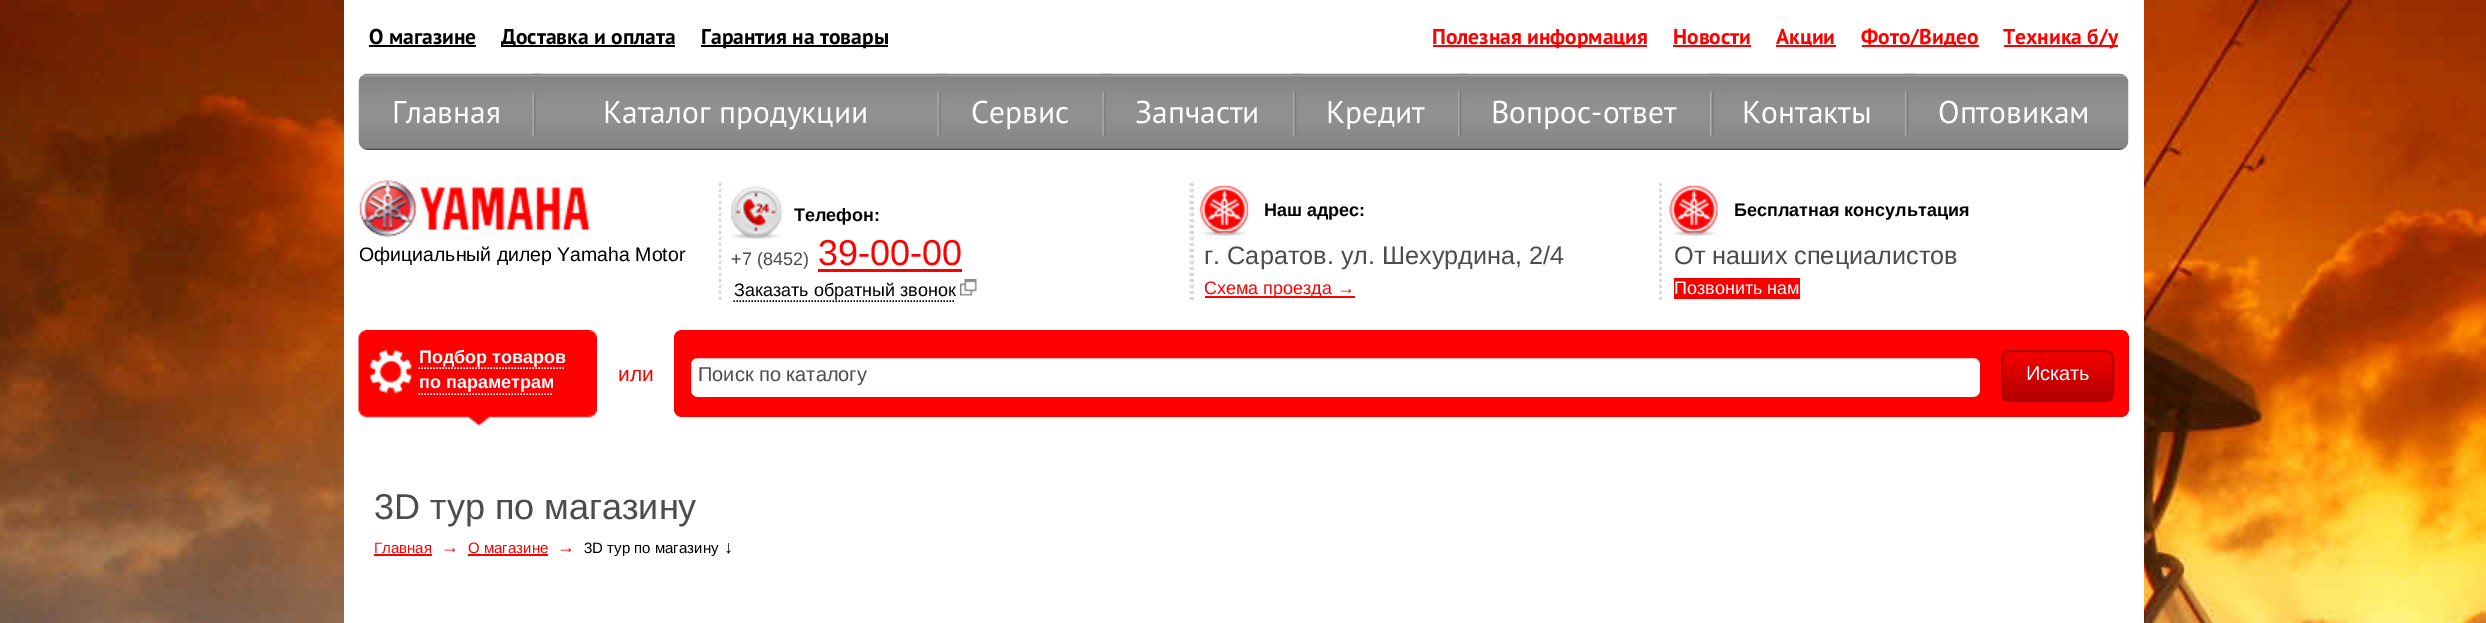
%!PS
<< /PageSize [2486 623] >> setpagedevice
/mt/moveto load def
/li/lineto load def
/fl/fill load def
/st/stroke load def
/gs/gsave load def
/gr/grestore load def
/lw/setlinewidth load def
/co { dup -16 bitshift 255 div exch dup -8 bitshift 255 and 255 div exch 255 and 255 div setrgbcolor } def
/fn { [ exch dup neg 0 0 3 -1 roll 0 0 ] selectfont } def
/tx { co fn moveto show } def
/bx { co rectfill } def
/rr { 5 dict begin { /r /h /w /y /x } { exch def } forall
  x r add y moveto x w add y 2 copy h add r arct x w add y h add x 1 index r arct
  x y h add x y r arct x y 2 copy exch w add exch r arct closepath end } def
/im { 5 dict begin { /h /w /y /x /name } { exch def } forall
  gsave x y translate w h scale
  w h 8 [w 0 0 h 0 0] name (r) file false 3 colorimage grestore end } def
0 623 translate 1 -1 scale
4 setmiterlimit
0 0 2486 623 16#FFFFFF bx
(media/1.raw) 0 0 2486 623 im
344 0 1800 623 16#FFFFFF bx
369 45 107 2 16#000000 bx
501 45 174 2 16#000000 bx
701 45 187 2 16#000000 bx
1433 45 214 2 16#FF0000 bx
1673 45 78 2 16#FF0000 bx
1776 45 60 2 16#FF0000 bx
1862 45 117 2 16#FF0000 bx
2004 45 114 2 16#FF0000 bx
(media/2.raw) 358 73 1771 77 im
(media/3.raw) 532 73 10 64 im
(media/4.raw) 937 73 10 64 im
(media/4.raw) 1102 73 10 64 im
(media/5.raw) 1293 73 9 64 im
(media/6.raw) 1458 73 9 64 im
(media/7.raw) 1710 73 11 64 im
(media/5.raw) 1905 73 9 64 im
(media/8.raw) 358 180 232 57 im
(media/9.raw) 718 180 4 120 im
(media/10.raw) 729 186 54 53 im
818 269 144 3 16#FF0000 bx
16#000000 co
1.5 lw
[1.5 1.5] 0 setdash
733.5 301 mt 955.5 301 li st
(media/11.raw) 960 279 17 17 im
(media/12.raw) 1189 180 5 120 im
(media/13.raw) 1199 185 50 51 im
1205 296 150 2 16#FF0000 bx
(media/14.raw) 1659 180 3 120 im
(media/15.raw) 1669 185 49 51 im
1674 278 126 21 16#F60000 bx
(media/16.raw) 358 330 239 96 im
16#FFFFFF co
418.5 368 mt 565.5 368 li st
418.5 394 mt 553.5 394 li st
16#FF0000 co
674 330 1455 87 8 rr fl
16#FFFFFF co
690 357 1291 41 7 rr gs fl gr
16#FF0000 co
2 lw
[] 0 setdash
st
(media/17.raw) 2001 352 113 49 im
16#B40000 co
2002 351 111 50 7 rr st
374 554 58 2 16#FF0000 bx
468 554 80 2 16#FF0000 bx
(О магазине) 369 44 /PTSans-Bold 21.5 16#000000 tx
(Доставка и оплата) 501 44 /PTSans-Bold 21.5 16#000000 tx
(Гарантия на товары) 701 44 /PTSans-Bold 21.5 16#000000 tx
(Полезная информация) 1432 44 /PTSans-Bold 21.5 16#FF0000 tx
(Новости) 1673 44 /PTSans-Bold 21.5 16#FF0000 tx
(Акции) 1776 44 /PTSans-Bold 21.5 16#FF0000 tx
(Фото/Видео) 1861 44 /PTSans-Bold 21.5 16#FF0000 tx
(Техника б/у) 2003 44 /PTSans-Bold 21.5 16#FF0000 tx
(Главная) 392 123 /PTSans-Regular 31.5 16#FFFFFF tx
(Каталог продукции) 603 123 /PTSans-Regular 31.5 16#FFFFFF tx
(Сервис) 971 123 /PTSans-Regular 31.5 16#FFFFFF tx
(Запчасти) 1135 123 /PTSans-Regular 31.5 16#FFFFFF tx
(Кредит) 1326 123 /PTSans-Regular 31.5 16#FFFFFF tx
(Вопрос-ответ) 1491 123 /PTSans-Regular 31.5 16#FFFFFF tx
(Контакты) 1742 123 /PTSans-Regular 31.5 16#FFFFFF tx
(Оптовикам) 1938 123 /PTSans-Regular 31.5 16#FFFFFF tx
(Официальный дилер Yamaha Motor) 359 261 /LiberationSans-Regular 19.5 16#000000 tx
(Телефон:) 794 221 /LiberationSans-Bold 18 16#000000 tx
(+7 \(8452\)) 731 265 /LiberationSans-Regular 18 16#4C4C4C tx
(39-00-00) 818 265 /LiberationSans-Regular 36 16#FF0000 tx
(Заказать обратный звонок) 734 296 /LiberationSans-Regular 18 16#000000 tx
(Наш адрес:) 1264 216 /LiberationSans-Bold 18 16#000000 tx
(г. Саратов. ул. Шехурдина, 2/4) 1204 264 /LiberationSans-Regular 25.25 16#4C4C4C tx
(Схема проезда →) 1204 294 /LiberationSans-Regular 18 16#FF0000 tx
(Бесплатная консультация) 1734 216 /LiberationSans-Bold 18 16#000000 tx
(От наших специалистов) 1674 264 /LiberationSans-Regular 25.25 16#4C4C4C tx
(Позвонить нам) 1674 294 /LiberationSans-Regular 18 16#FFFFFF tx
(Подбор товаров) 419 363 /LiberationSans-Bold 18 16#FFFFFF tx
(по параметрам) 419 388 /LiberationSans-Bold 18 16#FFFFFF tx
(или) 618 381 /LiberationSans-Regular 21 16#FF0000 tx
(Поиск по каталогу) 698 381 /LiberationSans-Regular 20 16#4C4C4C tx
(Искать) 2026 380 /LiberationSans-Regular 20 16#FFFFFF tx
(3D тур по магазину) 374 519 /LiberationSans-Regular 36 16#4C4C4C tx
(Главная) 374 553 /LiberationSans-Regular 15 16#FF0000 tx
(→) 441 553 /LiberationSans-Regular 18 16#FF0000 tx
(О магазине) 468 553 /LiberationSans-Regular 15 16#FF0000 tx
(→) 557 553 /LiberationSans-Regular 18 16#FF0000 tx
(3D тур по магазину) 584 553 /LiberationSans-Regular 15 16#000000 tx
(↓) 724 553 /LiberationSans-Regular 18 16#000000 tx
showpage
